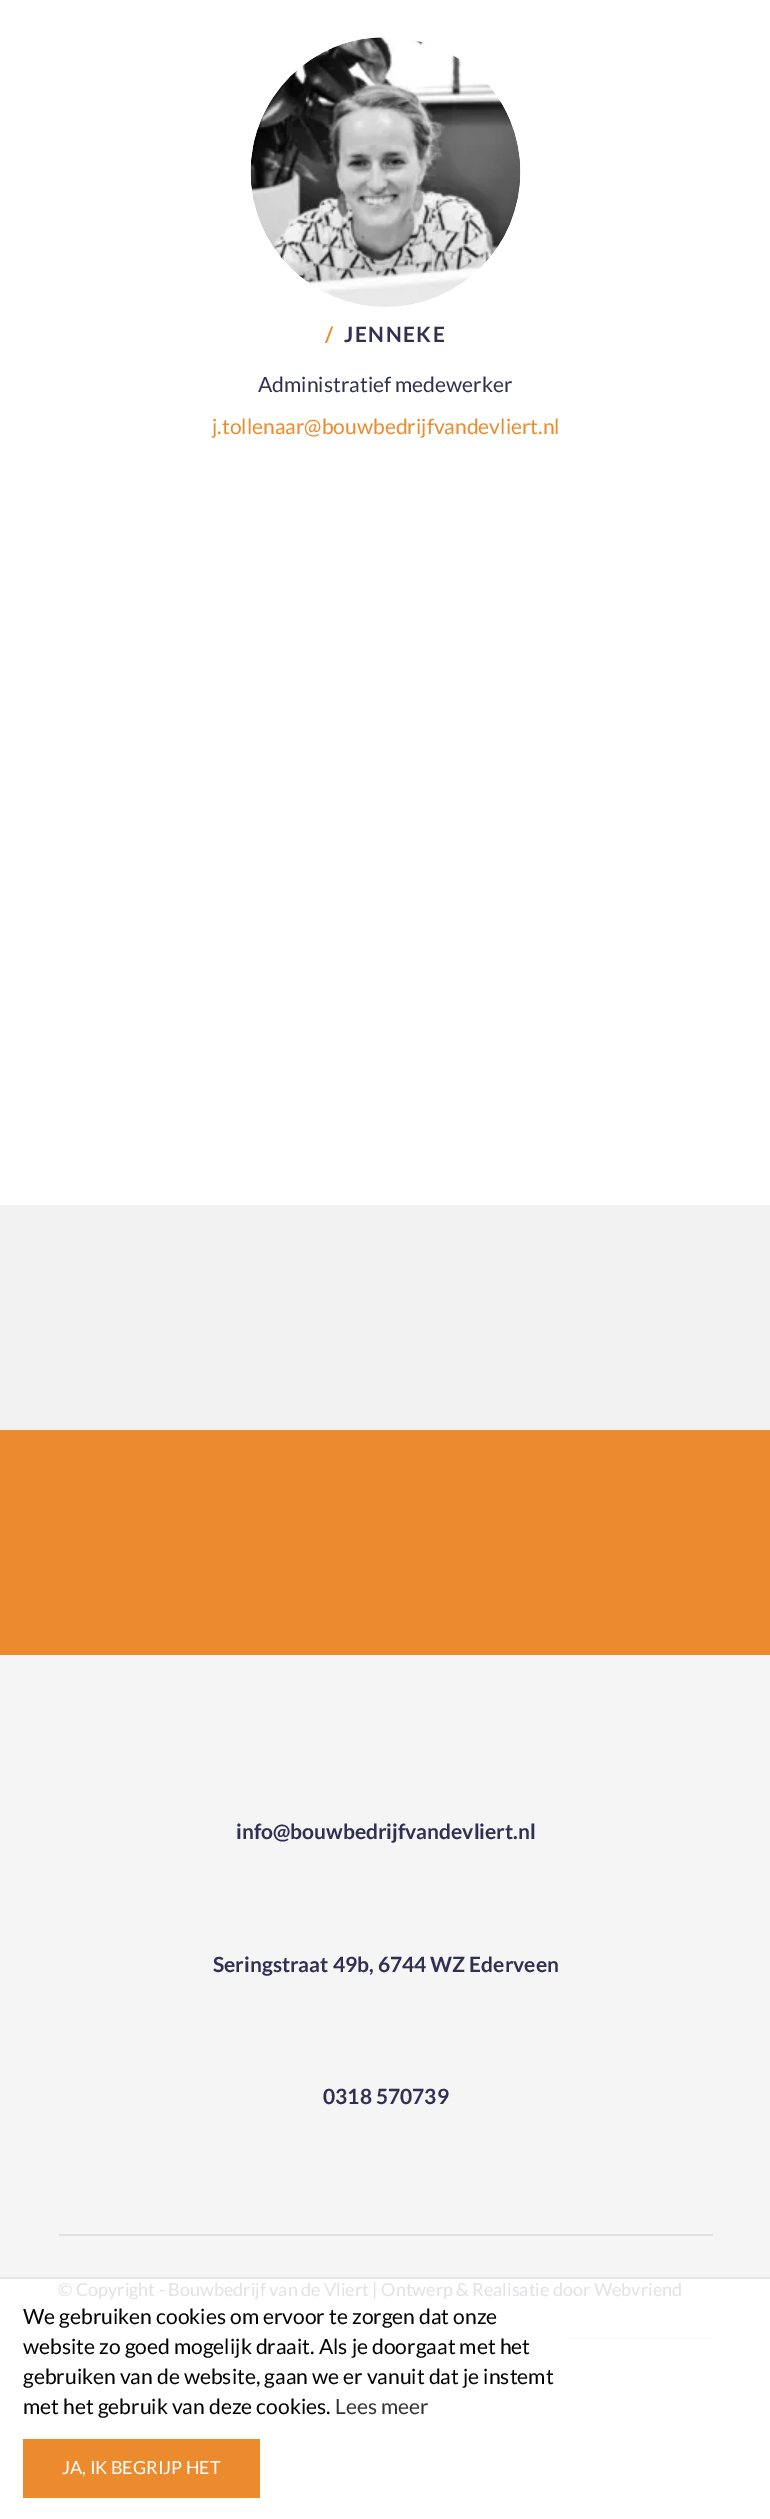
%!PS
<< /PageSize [770 2519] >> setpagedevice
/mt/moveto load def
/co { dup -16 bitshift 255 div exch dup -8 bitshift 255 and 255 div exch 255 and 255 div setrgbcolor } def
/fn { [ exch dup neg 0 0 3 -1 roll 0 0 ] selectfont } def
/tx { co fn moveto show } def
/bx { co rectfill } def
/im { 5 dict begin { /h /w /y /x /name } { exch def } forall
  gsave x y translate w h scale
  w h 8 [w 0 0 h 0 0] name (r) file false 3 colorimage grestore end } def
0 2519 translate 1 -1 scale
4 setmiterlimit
0 0 770 2519 16#FFFFFF bx
(media/1.raw) 250 37 271 270 im
0 1205 770 225 16#F2F2F2 bx
0 1430 770 225 16#EB8B2D bx
0 1655 770 622 16#F5F5F5 bx
59 2234 654 2 16#E1E1E5 bx
567 2337 146 2 16#FBFBFB bx
0 2277 770 2 16#E6E6E6 bx
23 2439 237 59 16#EB8B2D bx
/Lato-Bold 21 fn
325 342 mt 1.5 0 (/) ashow
16#303053 co
344 342 mt 1.5 0 (JENNEKE) ashow
(Administratief medewerker) 258 392 /Lato-Regular 21 16#303053 tx
(j.tollenaar@bouwbedrijfvandevliert.nl) 212 434 /Lato-Regular 21 16#EB8B2D tx
(info@bouwbedrijfvandevliert.nl) 236 1839 /Lato-Bold 21 16#303053 tx
(Seringstraat 49b, 6744 WZ Ederveen) 213 1972 /Lato-Bold 21 16#303053 tx
(0318 570739) 323 2104 /Lato-Bold 21 16#303053 tx
(© Copyright - Bouwbedrijf van de Vliert | Ontwerp & Realisatie door Webvriend) 58 2296 /Lato-Regular 18 16#E2E2E7 tx
(We gebruiken cookies om ervoor te zorgen dat onze) 23 2324 /Lato-Regular 21 16#000000 tx
(website zo goed mogelijk draait. Als je doorgaat met het) 23 2354 /Lato-Regular 21 16#000000 tx
(gebruiken van de website, gaan we er vanuit dat je instemt) 23 2384 /Lato-Regular 21 16#000000 tx
(met het gebruik van deze cookies.) 23 2414 /Lato-Regular 21 16#000000 tx
(Lees meer) 335 2414 /Lato-Regular 21 16#333333 tx
(JA, IK BEGRIJP HET) 62 2474 /Lato-Regular 18 16#FFFFFF tx
showpage
